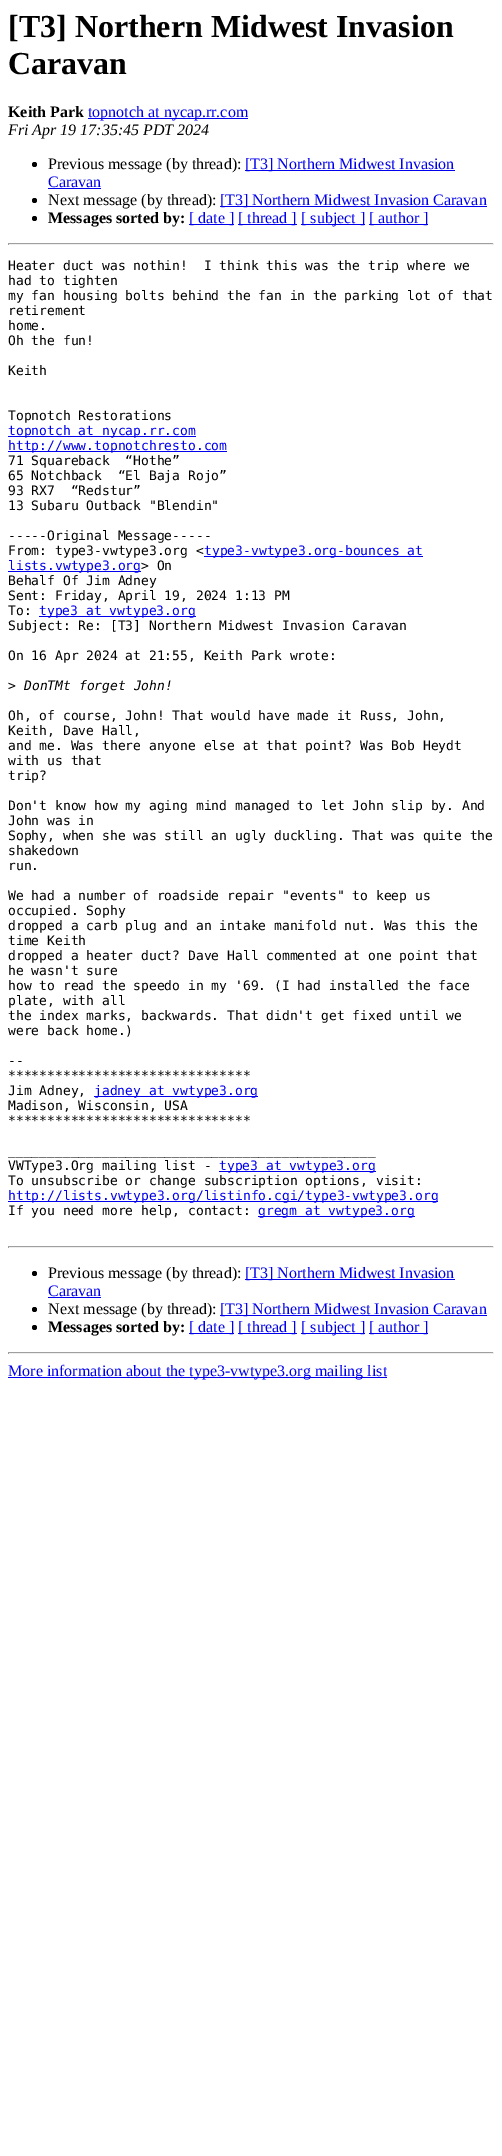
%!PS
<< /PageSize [502 2156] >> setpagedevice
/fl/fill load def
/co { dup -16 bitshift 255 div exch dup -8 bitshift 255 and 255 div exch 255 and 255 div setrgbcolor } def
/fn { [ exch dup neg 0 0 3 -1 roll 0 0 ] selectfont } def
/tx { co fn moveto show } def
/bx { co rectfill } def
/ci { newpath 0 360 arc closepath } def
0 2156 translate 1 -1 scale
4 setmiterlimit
0 0 502 2156 16#FFFFFF bx
88 118 160 1 16#0000EE bx
16#000000 co
34.5 164.5 2.5 ci fl
245 170 210 1 16#0000EE bx
48 188 53 1 16#0000EE bx
16#000000 co
34.5 200.5 2.5 ci fl
220 206 267 1 16#0000EE bx
16#000000 co
34.5 218.5 2.5 ci fl
189 224 45 1 16#0000EE bx
238 224 59 1 16#0000EE bx
301 224 64 1 16#0000EE bx
369 224 59 1 16#0000EE bx
8 243 486 1 16#9F9F9F bx
493 243 1 2 16#EEEEEE bx
8 244 486 1 16#EEEEEE bx
8 243 1 2 16#9F9F9F bx
8 436 188 1 16#0000EE bx
8 451 219 1 16#0000EE bx
204 556 219 1 16#0000EE bx
8 571 133 1 16#0000EE bx
39 616 157 1 16#0000EE bx
94 1096 164 1 16#0000EE bx
219 1171 157 1 16#0000EE bx
8 1201 430 1 16#0000EE bx
258 1216 157 1 16#0000EE bx
8 1246 486 1 16#9F9F9F bx
493 1246 1 2 16#EEEEEE bx
8 1247 486 1 16#EEEEEE bx
8 1246 1 2 16#9F9F9F bx
16#000000 co
34.5 1273.5 2.5 ci fl
245 1279 210 1 16#0000EE bx
48 1297 53 1 16#0000EE bx
16#000000 co
34.5 1309.5 2.5 ci fl
220 1315 267 1 16#0000EE bx
16#000000 co
34.5 1327.5 2.5 ci fl
189 1333 45 1 16#0000EE bx
238 1333 59 1 16#0000EE bx
301 1333 64 1 16#0000EE bx
369 1333 59 1 16#0000EE bx
8 1352 486 1 16#9F9F9F bx
493 1352 1 2 16#EEEEEE bx
8 1353 486 1 16#EEEEEE bx
8 1352 1 2 16#9F9F9F bx
8 1377 379 1 16#0000EE bx
([T3] Northern Midwest Invasion) 8 37 /LiberationSerif-Bold 32 16#000000 tx
(Caravan) 8 74 /LiberationSerif-Bold 32 16#000000 tx
(Keith Park) 8 117 /LiberationSerif-Bold 16 16#000000 tx
(topnotch at nycap.rr.com) 88 117 /LiberationSerif-Regular 16 16#0000EE tx
(Fri Apr 19 17:35:45 PDT 2024) 8 135 /LiberationSerif-Italic 16 16#000000 tx
(Previous message \(by thread\):) 48 169 /LiberationSerif-Regular 16 16#000000 tx
([T3] Northern Midwest Invasion) 245 169 /LiberationSerif-Regular 16 16#0000EE tx
(Caravan) 48 187 /LiberationSerif-Regular 16 16#0000EE tx
(Next message \(by thread\):) 48 205 /LiberationSerif-Regular 16 16#000000 tx
([T3] Northern Midwest Invasion Caravan) 220 205 /LiberationSerif-Regular 16 16#0000EE tx
(Messages sorted by:) 48 223 /LiberationSerif-Bold 16 16#000000 tx
([ date ]) 189 223 /LiberationSerif-Regular 16 16#0000EE tx
([ thread ]) 238 223 /LiberationSerif-Regular 16 16#0000EE tx
([ subject ]) 301 223 /LiberationSerif-Regular 16 16#0000EE tx
([ author ]) 369 223 /LiberationSerif-Regular 16 16#0000EE tx
(Heater duct was nothin!  I think this was the trip where we) 8 270 /DejaVuSansMono-Regular 13 16#000000 tx
(had to tighten) 8 285 /DejaVuSansMono-Regular 13 16#000000 tx
(my fan housing bolts behind the fan in the parking lot of that) 8 300 /DejaVuSansMono-Regular 13 16#000000 tx
(retirement) 8 315 /DejaVuSansMono-Regular 13 16#000000 tx
(home.) 8 330 /DejaVuSansMono-Regular 13 16#000000 tx
(Oh the fun!) 8 345 /DejaVuSansMono-Regular 13 16#000000 tx
(Keith) 8 375 /DejaVuSansMono-Regular 13 16#000000 tx
(Topnotch Restorations) 8 420 /DejaVuSansMono-Regular 13 16#000000 tx
(topnotch at nycap.rr.com) 8 435 /DejaVuSansMono-Regular 13 16#0000EE tx
(http://www.topnotchresto.com) 8 450 /DejaVuSansMono-Regular 13 16#0000EE tx
(71 Squareback  “Hothe”) 8 465 /DejaVuSansMono-Regular 13 16#000000 tx
(65 Notchback  “El Baja Rojo”) 8 480 /DejaVuSansMono-Regular 13 16#000000 tx
(93 RX7  “Redstur”) 8 495 /DejaVuSansMono-Regular 13 16#000000 tx
(13 Subaru Outback "Blendin") 8 510 /DejaVuSansMono-Regular 13 16#000000 tx
(-----Original Message-----) 8 540 /DejaVuSansMono-Regular 13 16#000000 tx
(From: type3-vwtype3.org <) 8 555 /DejaVuSansMono-Regular 13 16#000000 tx
(type3-vwtype3.org-bounces at) 204 555 /DejaVuSansMono-Regular 13 16#0000EE tx
(lists.vwtype3.org) 8 570 /DejaVuSansMono-Regular 13 16#0000EE tx
(> On) 141 570 /DejaVuSansMono-Regular 13 16#000000 tx
(Behalf Of Jim Adney) 8 585 /DejaVuSansMono-Regular 13 16#000000 tx
(Sent: Friday, April 19, 2024 1:13 PM) 8 600 /DejaVuSansMono-Regular 13 16#000000 tx
(To:) 8 615 /DejaVuSansMono-Regular 13 16#000000 tx
(type3 at vwtype3.org) 39 615 /DejaVuSansMono-Regular 13 16#0000EE tx
(Subject: Re: [T3] Northern Midwest Invasion Caravan) 8 630 /DejaVuSansMono-Regular 13 16#000000 tx
(On 16 Apr 2024 at 21:55, Keith Park wrote:) 8 660 /DejaVuSansMono-Regular 13 16#000000 tx
(>) 8 690 /DejaVuSansMono-Regular 13 16#000000 tx
(DonTMt forget John!) 24 690 /DejaVuSansMono-Italic 13 16#000000 tx
(Oh, of course, John! That would have made it Russ, John,) 8 720 /DejaVuSansMono-Regular 13 16#000000 tx
(Keith, Dave Hall,) 8 735 /DejaVuSansMono-Regular 13 16#000000 tx
(and me. Was there anyone else at that point? Was Bob Heydt) 8 750 /DejaVuSansMono-Regular 13 16#000000 tx
(with us that) 8 765 /DejaVuSansMono-Regular 13 16#000000 tx
(trip?) 8 780 /DejaVuSansMono-Regular 13 16#000000 tx
(Don't know how my aging mind managed to let John slip by. And) 8 810 /DejaVuSansMono-Regular 13 16#000000 tx
(John was in) 8 825 /DejaVuSansMono-Regular 13 16#000000 tx
(Sophy, when she was still an ugly duckling. That was quite the) 8 840 /DejaVuSansMono-Regular 13 16#000000 tx
(shakedown) 8 855 /DejaVuSansMono-Regular 13 16#000000 tx
(run.) 8 870 /DejaVuSansMono-Regular 13 16#000000 tx
(We had a number of roadside repair "events" to keep us) 8 900 /DejaVuSansMono-Regular 13 16#000000 tx
(occupied. Sophy) 8 915 /DejaVuSansMono-Regular 13 16#000000 tx
(dropped a carb plug and an intake manifold nut. Was this the) 8 930 /DejaVuSansMono-Regular 13 16#000000 tx
(time Keith) 8 945 /DejaVuSansMono-Regular 13 16#000000 tx
(dropped a heater duct? Dave Hall commented at one point that) 8 960 /DejaVuSansMono-Regular 13 16#000000 tx
(he wasn't sure) 8 975 /DejaVuSansMono-Regular 13 16#000000 tx
(how to read the speedo in my '69. \(I had installed the face) 8 990 /DejaVuSansMono-Regular 13 16#000000 tx
(plate, with all) 8 1005 /DejaVuSansMono-Regular 13 16#000000 tx
(the index marks, backwards. That didn't get fixed until we) 8 1020 /DejaVuSansMono-Regular 13 16#000000 tx
(were back home.\)) 8 1035 /DejaVuSansMono-Regular 13 16#000000 tx
(--) 8 1065 /DejaVuSansMono-Regular 13 16#000000 tx
(*******************************) 8 1080 /DejaVuSansMono-Regular 13 16#000000 tx
(Jim Adney,) 8 1095 /DejaVuSansMono-Regular 13 16#000000 tx
(jadney at vwtype3.org) 94 1095 /DejaVuSansMono-Regular 13 16#0000EE tx
(Madison, Wisconsin, USA) 8 1110 /DejaVuSansMono-Regular 13 16#000000 tx
(*******************************) 8 1125 /DejaVuSansMono-Regular 13 16#000000 tx
(_______________________________________________) 8 1155 /DejaVuSansMono-Regular 13 16#000000 tx
(VWType3.Org mailing list -) 8 1170 /DejaVuSansMono-Regular 13 16#000000 tx
(type3 at vwtype3.org) 219 1170 /DejaVuSansMono-Regular 13 16#0000EE tx
(To unsubscribe or change subscription options, visit:) 8 1185 /DejaVuSansMono-Regular 13 16#000000 tx
(http://lists.vwtype3.org/listinfo.cgi/type3-vwtype3.org) 8 1200 /DejaVuSansMono-Regular 13 16#0000EE tx
(If you need more help, contact:) 8 1215 /DejaVuSansMono-Regular 13 16#000000 tx
(gregm at vwtype3.org) 258 1215 /DejaVuSansMono-Regular 13 16#0000EE tx
(Previous message \(by thread\):) 48 1278 /LiberationSerif-Regular 16 16#000000 tx
([T3] Northern Midwest Invasion) 245 1278 /LiberationSerif-Regular 16 16#0000EE tx
(Caravan) 48 1296 /LiberationSerif-Regular 16 16#0000EE tx
(Next message \(by thread\):) 48 1314 /LiberationSerif-Regular 16 16#000000 tx
([T3] Northern Midwest Invasion Caravan) 220 1314 /LiberationSerif-Regular 16 16#0000EE tx
(Messages sorted by:) 48 1332 /LiberationSerif-Bold 16 16#000000 tx
([ date ]) 189 1332 /LiberationSerif-Regular 16 16#0000EE tx
([ thread ]) 238 1332 /LiberationSerif-Regular 16 16#0000EE tx
([ subject ]) 301 1332 /LiberationSerif-Regular 16 16#0000EE tx
([ author ]) 369 1332 /LiberationSerif-Regular 16 16#0000EE tx
(More information about the type3-vwtype3.org mailing list) 8 1376 /LiberationSerif-Regular 16 16#0000EE tx
showpage
